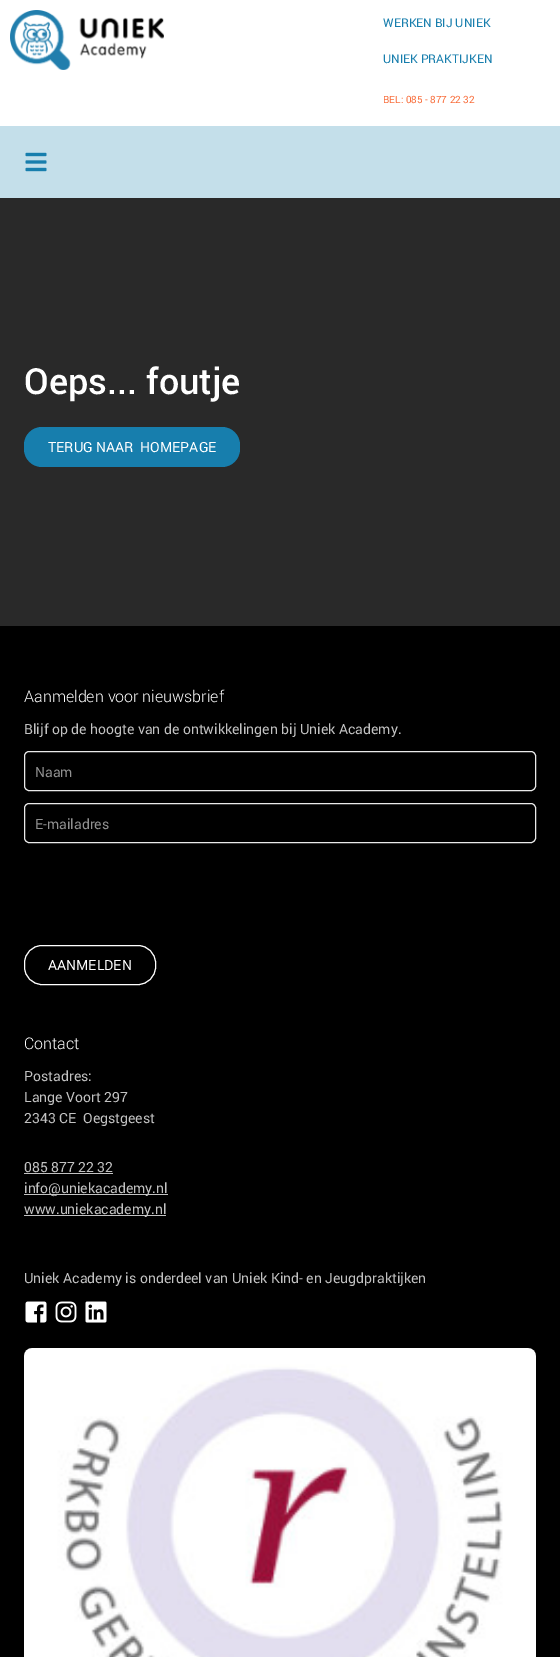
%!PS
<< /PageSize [560 1657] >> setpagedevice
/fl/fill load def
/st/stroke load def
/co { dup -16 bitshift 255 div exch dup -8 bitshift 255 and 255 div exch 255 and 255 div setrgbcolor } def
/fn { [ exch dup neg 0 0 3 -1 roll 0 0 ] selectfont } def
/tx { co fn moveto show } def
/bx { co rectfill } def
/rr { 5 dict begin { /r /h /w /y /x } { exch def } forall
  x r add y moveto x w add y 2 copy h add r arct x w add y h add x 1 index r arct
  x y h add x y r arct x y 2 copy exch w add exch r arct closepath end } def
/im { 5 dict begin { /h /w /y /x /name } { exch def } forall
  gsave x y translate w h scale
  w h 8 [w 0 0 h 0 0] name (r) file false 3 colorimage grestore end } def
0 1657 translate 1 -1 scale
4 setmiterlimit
0 0 560 1657 16#FFFFFF bx
(media/1.raw) 10 10 154 60 im
0 126 560 72 16#C4DFEA bx
(media/2.raw) 25 152 22 20 im
0 198 560 428 16#292929 bx
16#177EAD co
24 427 216 40 18 rr fl
0 626 560 1031 16#000000 bx
16#EAEAEA co
24.5 751.5 511 39 4.5 rr st
24.5 803.5 511 39 4.5 rr st
16#FFFFFF co
24.5 945.5 131 39 17.5 rr st
24 1173 89 1 16#C2C2C2 bx
24 1194 144 1 16#C2C2C2 bx
24 1215 142 1 16#C2C2C2 bx
(media/3.raw) 25 1301 22 22 im
(media/4.raw) 55 1301 22 22 im
(media/5.raw) 85 1301 22 22 im
(media/6.raw) 24 1348 512 309 im
(WERKEN BIJ UNIEK) 383 27 /Roboto-Regular 12 16#177EAD tx
(UNIEK PRAKTIJKEN) 383 63 /Roboto-Regular 12 16#177EAD tx
(BEL: 085 - 877 22 32) 383 103 /Roboto-Regular 10 16#F9703E tx
(Oeps... foutje) 24 394 /Roboto-Medium 36 16#FFFFFF tx
(TERUG NAAR  HOMEPAGE) 48 452 /Roboto-Regular 14 16#FFFFFF tx
(Aanmelden voor nieuwsbrief) 24 702 /Roboto-Light 16 16#FFFFFF tx
(Blijf op de hoogte van de ontwikkelingen bij Uniek Academy.) 24 734 /Roboto-Regular 14 16#C2C2C2 tx
(Naam) 35 777 /Roboto-Regular 14 16#919191 tx
(E-mailadres) 35 829 /Roboto-Regular 14 16#919191 tx
(AANMELDEN) 48 970 /Roboto-Regular 14 16#FFFFFF tx
(Contact) 24 1049 /Roboto-Light 16 16#FFFFFF tx
(Postadres:) 24 1081 /Roboto-Regular 14 16#C2C2C2 tx
(Lange Voort 297) 24 1102 /Roboto-Regular 14 16#C2C2C2 tx
(2343 CE  Oegstgeest) 24 1123 /Roboto-Regular 14 16#C2C2C2 tx
(085 877 22 32) 24 1172 /Roboto-Regular 14 16#C2C2C2 tx
(info@uniekacademy.nl) 24 1193 /Roboto-Regular 14 16#C2C2C2 tx
(www.uniekacademy.nl) 24 1214 /Roboto-Regular 14 16#C2C2C2 tx
(Uniek Academy is onderdeel van Uniek Kind- en Jeugdpraktijken) 24 1283 /Roboto-Regular 14 16#C2C2C2 tx
showpage
